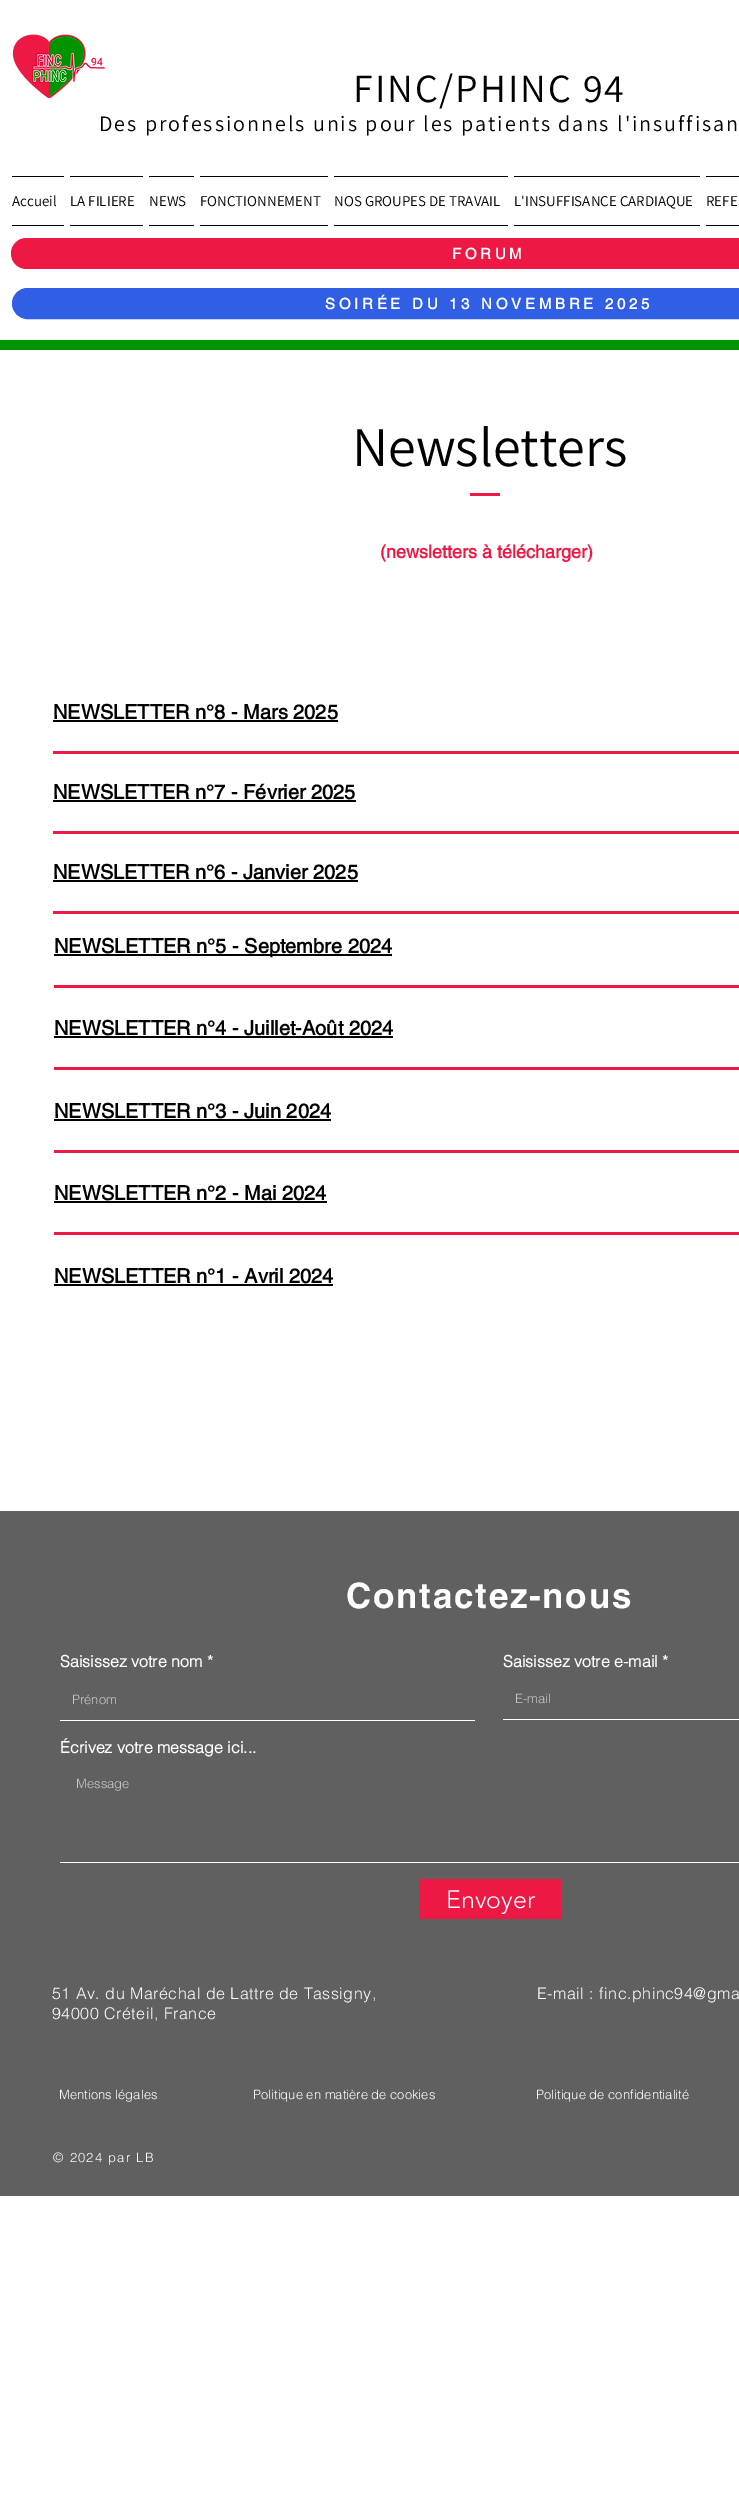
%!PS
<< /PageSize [739 2506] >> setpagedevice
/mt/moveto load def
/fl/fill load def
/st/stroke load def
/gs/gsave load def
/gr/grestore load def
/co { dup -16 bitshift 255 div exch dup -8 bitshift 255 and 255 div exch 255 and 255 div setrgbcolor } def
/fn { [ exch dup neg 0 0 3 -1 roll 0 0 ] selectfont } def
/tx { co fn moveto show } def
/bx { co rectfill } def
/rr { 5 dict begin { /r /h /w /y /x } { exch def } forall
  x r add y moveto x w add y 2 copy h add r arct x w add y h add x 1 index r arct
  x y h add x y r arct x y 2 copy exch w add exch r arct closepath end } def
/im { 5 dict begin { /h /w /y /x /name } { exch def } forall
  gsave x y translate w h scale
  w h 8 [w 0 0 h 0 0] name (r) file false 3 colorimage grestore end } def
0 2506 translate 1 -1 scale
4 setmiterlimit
0 0 739 2506 16#FFFFFF bx
(media/1.raw) 12 34 93 64 im
12 176 52 1 16#000000 bx
12 225 52 1 16#000000 bx
70 176 73 1 16#000000 bx
70 225 73 1 16#000000 bx
149 176 45 1 16#000000 bx
149 225 45 1 16#000000 bx
200 176 128 1 16#000000 bx
200 225 128 1 16#000000 bx
334 176 174 1 16#000000 bx
334 225 174 1 16#000000 bx
514 176 186 1 16#000000 bx
514 225 186 1 16#000000 bx
706 176 33 1 16#000000 bx
706 225 33 1 16#000000 bx
16#ED1844 co
11 238 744 31 15.5 rr fl
16#305FE6 co
12.5 288.5 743 30 15 rr gs fl gr
st
0 340 739 10 16#009400 bx
470 493 30 3 16#ED1844 bx
53 720 285 2 16#000000 bx
53 751 686 3 16#ED1844 bx
53 800 303 2 16#000000 bx
53 831 686 3 16#ED1844 bx
53 880 305 2 16#000000 bx
53 911 686 3 16#ED1844 bx
54 954 338 2 16#000000 bx
54 985 685 3 16#ED1844 bx
54 1036 339 2 16#000000 bx
54 1067 685 3 16#ED1844 bx
54 1119 277 2 16#000000 bx
54 1150 685 3 16#ED1844 bx
54 1201 273 2 16#000000 bx
54 1232 685 3 16#ED1844 bx
54 1284 279 2 16#000000 bx
0 1511 739 685 16#606061 bx
60 1720 415 1 16#FFFFFF bx
503 1719 236 1 16#FFFFFF bx
60 1862 679 1 16#FFFFFF bx
419 1879 142 40 16#ED1844 bx
/Assistant-Regular 40 fn
16#000000 co
353 102 mt 2 0 (FINC/PHINC 94) ashow
/Assistant-Regular 22 fn
99 131 mt 2 0 (Des professionnels unis pour les patients dans l'insuffisan) ashow
(Accueil) 12 206 /Assistant-Regular 15 16#000000 tx
(LA FILIERE) 70 206 /Assistant-Regular 15 16#000000 tx
(NEWS) 149 206 /Assistant-Regular 15 16#000000 tx
(FONCTIONNEMENT) 200 206 /Assistant-Regular 15 16#000000 tx
(NOS GROUPES DE TRAVAIL) 334 206 /Assistant-Regular 15 16#000000 tx
(L'INSUFFISANCE CARDIAQUE) 514 206 /Assistant-Regular 15 16#000000 tx
(REFE) 706 206 /Assistant-Regular 15 16#000000 tx
/helvetica-Bold 15 fn
16#FFFFFF co
452 259 mt 3.75 0 (FORUM) ashow
325 309 mt 3.75 0 (SOIRÉE DU 13 NOVEMBRE 2025) ashow
(Newsletters) 352 466 /Assistant-Regular 56 16#000000 tx
(\(newsletters à télécharger\)) 380 558 /helvetica-Bold 18 16#ED1844 tx
(NEWSLETTER n°8 - Mars 2025) 53 719 /helvetica-Bold 20 16#000000 tx
(NEWSLETTER n°7 - Février 2025) 53 799 /helvetica-Bold 20 16#000000 tx
(NEWSLETTER n°6 - Janvier 2025) 53 879 /helvetica-Bold 20 16#000000 tx
(NEWSLETTER n°5 - Septembre 2024) 54 953 /helvetica-Bold 20 16#000000 tx
(NEWSLETTER n°4 - Juillet-Août 2024) 54 1035 /helvetica-Bold 20 16#000000 tx
(NEWSLETTER n°3 - Juin 2024) 54 1118 /helvetica-Bold 20 16#000000 tx
(NEWSLETTER n°2 - Mai 2024) 54 1200 /helvetica-Bold 20 16#000000 tx
(NEWSLETTER n°1 - Avril 2024) 54 1283 /helvetica-Bold 20 16#000000 tx
/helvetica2-Bold 35 fn
16#FFFFFF co
346 1608 mt 1.75 0 (Contactez-nous) ashow
(Saisissez votre nom *) 60 1667 /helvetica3-Bold 16 16#FFFFFF tx
(Prénom) 72 1704 /helvetica-Light 13 16#C7C7C7 tx
(Saisissez votre e-mail *) 503 1667 /helvetica3-Bold 16 16#FFFFFF tx
(E-mail) 515 1703 /helvetica-Light 13 16#C7C7C7 tx
(Écrivez votre message ici...) 60 1753 /helvetica3-Bold 16 16#FFFFFF tx
(Message) 76 1788 /helvetica-Light 13 16#C7C7C7 tx
(Envoyer) 446 1908 /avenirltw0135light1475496-Light 25 16#FFFFFF tx
/helvetica-Light 16 fn
52 1999 mt .5 0 (51 Av. du Maréchal de Lattre de Tassigny,) ashow
52 2019 mt .5 0 (94000 Créteil, France) ashow
537 1999 mt .5 0 (E-mail : finc.phinc94@gma) ashow
(Mentions légales) 59 2099 /helvetica-Light 13 16#FFFFFF tx
(Politique en matière de cookies) 253 2099 /helvetica-Light 13 16#FFFFFF tx
(Politique de confidentialité) 536 2099 /helvetica-Light 13 16#FFFFFF tx
53 2162 mt 1.25 0 (© 2024 par LB) ashow
showpage
